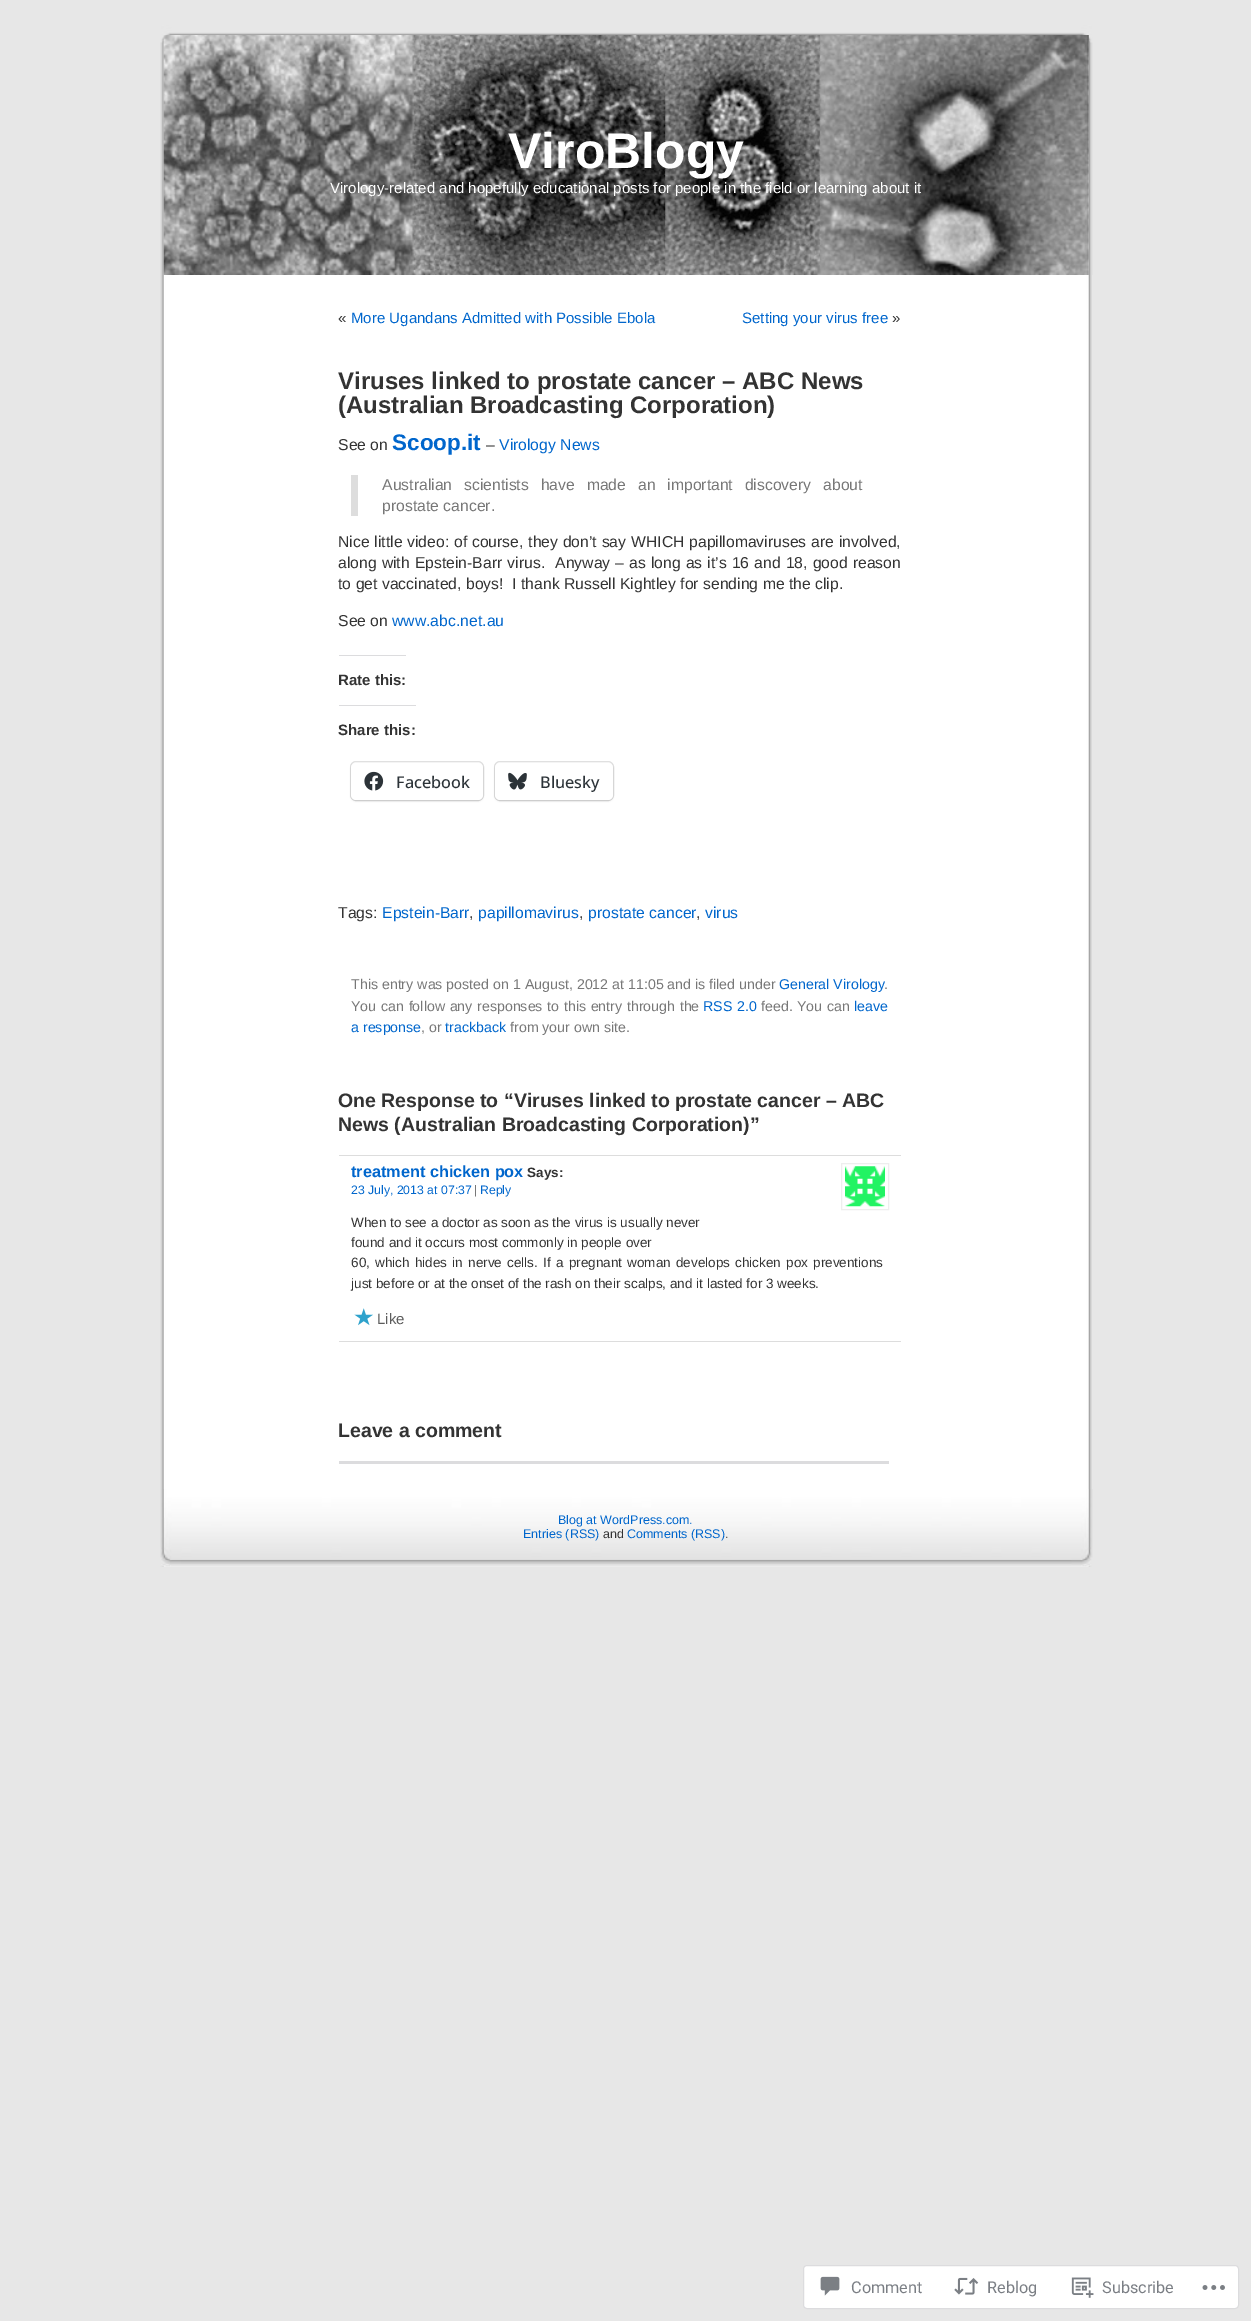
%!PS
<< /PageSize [1251 2321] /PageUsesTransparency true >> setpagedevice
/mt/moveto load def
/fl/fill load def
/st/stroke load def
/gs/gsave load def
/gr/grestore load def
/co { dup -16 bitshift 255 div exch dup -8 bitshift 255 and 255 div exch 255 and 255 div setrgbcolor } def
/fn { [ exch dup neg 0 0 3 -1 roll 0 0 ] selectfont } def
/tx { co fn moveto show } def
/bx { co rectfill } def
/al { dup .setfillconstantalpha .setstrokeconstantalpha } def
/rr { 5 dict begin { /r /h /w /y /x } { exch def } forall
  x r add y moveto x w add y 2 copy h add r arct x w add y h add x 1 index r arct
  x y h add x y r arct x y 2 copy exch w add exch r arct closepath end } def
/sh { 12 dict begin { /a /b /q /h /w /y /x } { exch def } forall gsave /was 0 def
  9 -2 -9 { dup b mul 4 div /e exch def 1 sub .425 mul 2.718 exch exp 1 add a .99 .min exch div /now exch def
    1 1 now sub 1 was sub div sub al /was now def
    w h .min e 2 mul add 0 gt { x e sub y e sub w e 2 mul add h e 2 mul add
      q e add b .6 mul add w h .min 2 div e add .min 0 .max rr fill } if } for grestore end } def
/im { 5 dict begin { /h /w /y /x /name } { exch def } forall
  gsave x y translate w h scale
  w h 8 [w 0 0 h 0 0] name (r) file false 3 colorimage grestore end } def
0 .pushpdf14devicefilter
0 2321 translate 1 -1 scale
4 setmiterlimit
0 0 1251 2321 16#E7E7E7 bx
(media/1.raw) 160 275 932 1292 im
(media/2.raw) 160 25 933 250 im
(media/3.raw) 163 35 926 240 im
351 475 7 41 16#DDDDDD bx
339 655 67 1 16#DCDCDE bx
339 705 77 1 16#DCDCDE bx
16#E0E0E0 co
350.5 761.5 133 39 5.5 rr st
16#000000 co
351 764 132 37 5 1 .12 sh
16#FFFFFF co
351 763 132 37 5 rr fl
(media/4.raw) 364 771 20 20 im
16#E0E0E0 co
494.5 761.5 119 39 5.5 rr st
16#000000 co
495 764 118 37 5 1 .12 sh
16#FFFFFF co
495 763 118 37 5 rr fl
(media/5.raw) 508 772 19 18 im
339 1155 562 1 16#DDDDDD bx
339 1341 562 1 16#DDDDDD bx
16#EEEEEE co
841.5 1163.5 47 46 rectstroke
(media/6.raw) 845 1166 40 41 im
(media/7.raw) 354 1308 19 18 im
339 1461 550 3 16#DCDCDE bx
(media/8.raw) 160 1489 933 78 im
16#FFFFFF co
803.5 2265.5 435 43 3.5 rr gs fl gr
16#DCDCDE co
st
(media/9.raw) 820 2276 20 20 im
(media/10.raw) 954 2277 25 18 im
(media/11.raw) 1071 2277 23 21 im
(media/12.raw) 1202 2285 23 5 im
(ViroBlogy) 508 168 /LiberationSans-Bold 50 16#FFFFFF tx
(Virology-related and hopefully educational posts for people in the field or learning about it) 330 193 /LiberationSans-Regular 15 16#FFFFFF tx
(«) 338 323 /LiberationSans-Regular 15 16#333333 tx
(More Ugandans Admitted with Possible Ebola) 351 323 /LiberationSans-Regular 15 16#0066CC tx
(Setting your virus free) 742 323 /LiberationSans-Regular 15 16#0066CC tx
(») 892 323 /LiberationSans-Regular 15 16#333333 tx
(Viruses linked to prostate cancer – ABC News) 338 389 /LiberationSans-Bold 24 16#333333 tx
(\(Australian Broadcasting Corporation\)) 338 413 /LiberationSans-Bold 24 16#333333 tx
(See on) 338 450 /LiberationSans-Regular 15.75 16#333333 tx
(Scoop.it) 392 450 /LiberationSans-Bold 22.5 16#0066CC tx
(–) 486 450 /LiberationSans-Regular 15.75 16#333333 tx
(Virology News) 499 450 /LiberationSans-Regular 15.75 16#0066CC tx
16#777777 co
382 490 mt 7.5 0 32 (Australian scientists have made an important discovery about) widthshow
(prostate cancer.) 382 511 /LiberationSans-Regular 15.75 16#777777 tx
16#333333 co
338 547 mt .4 0 32 (Nice little video: of course, they don’t say WHICH papillomaviruses are involved,) widthshow
338 568 mt .7 0 32 (along with Epstein-Barr virus.  Anyway – as long as it’s 16 and 18, good reason) widthshow
(to get vaccinated, boys!  I thank Russell Kightley for sending me the clip.) 338 589 /LiberationSans-Regular 15.75 16#333333 tx
(See on) 338 626 /LiberationSans-Regular 15.75 16#333333 tx
(www.abc.net.au) 392 626 /LiberationSans-Regular 15.75 16#0066CC tx
(Rate this:) 338 685 /LiberationSans-Bold 15 16#333333 tx
(Share this:) 338 735 /LiberationSans-Bold 15 16#333333 tx
(Facebook) 396 788 /OpenSans-Medium 16.25 16#2C3338 tx
(Bluesky) 540 788 /OpenSans-Medium 16.25 16#2C3338 tx
(Tags:) 338 918 /LiberationSans-Regular 15.75 16#333333 tx
(Epstein-Barr) 382 918 /LiberationSans-Regular 15.75 16#0066CC tx
(,) 469 918 /LiberationSans-Regular 15.75 16#333333 tx
(papillomavirus) 478 918 /LiberationSans-Regular 15.75 16#0066CC tx
(,) 579 918 /LiberationSans-Regular 15.75 16#333333 tx
(prostate cancer) 588 918 /LiberationSans-Regular 15.75 16#0066CC tx
(,) 696 918 /LiberationSans-Regular 15.75 16#333333 tx
(virus) 705 918 /LiberationSans-Regular 15.75 16#0066CC tx
(This entry was posted on 1 August, 2012 at 11:05 and is filed under) 351 989 /LiberationSans-Regular 14.2 16#777777 tx
(General Virology) 779 989 /LiberationSans-Regular 14.2 16#0066CC tx
(.) 884 989 /LiberationSans-Regular 14.2 16#777777 tx
351 1011 mt .75 0 32 (You can follow any responses to this entry through the) widthshow
16#0066CC co
703 1011 mt .7 0 32 (RSS 2.0) widthshow
(feed.) 761 1011 /LiberationSans-Regular 14.2 16#777777 tx
797 1011 mt 1 0 32 (You can) widthshow
(leave) 854 1011 /LiberationSans-Regular 14.2 16#0066CC tx
(a response) 351 1032 /LiberationSans-Regular 14.2 16#0066CC tx
(, or) 421 1032 /LiberationSans-Regular 14.2 16#777777 tx
(trackback) 445 1032 /LiberationSans-Regular 14.2 16#0066CC tx
(from your own site.) 510 1032 /LiberationSans-Regular 14.2 16#777777 tx
(One Response to “Viruses linked to prostate cancer – ABC) 338 1107 /LiberationSans-Bold 19.5 16#333333 tx
(News \(Australian Broadcasting Corporation\)”) 338 1131 /LiberationSans-Bold 19.5 16#333333 tx
(treatment chicken pox) 351 1177 /LiberationSans-Bold 16.25 16#0066CC tx
(Says:) 527 1177 /LiberationSans-Bold 13.5 16#333333 tx
(23 July, 2013 at 07:37) 351 1194 /LiberationSans-Regular 12.25 16#0066CC tx
(|) 474 1194 /LiberationSans-Regular 12.25 16#777777 tx
(Reply) 480 1194 /LiberationSans-Regular 12.25 16#0066CC tx
(When to see a doctor as soon as the virus is usually never) 351 1227 /LiberationSans-Regular 13.5 16#333333 tx
(found and it occurs most commonly in people over) 351 1247 /LiberationSans-Regular 13.5 16#333333 tx
351 1267 mt 1.5 0 32 (60, which hides in nerve cells. If a pregnant woman develops chicken pox preventions) widthshow
(just before or at the onset of the rash on their scalps, and it lasted for 3 weeks.) 351 1288 /LiberationSans-Regular 13.5 16#333333 tx
(Like) 377 1324 /LiberationSans-Regular 15 16#5C5C5C tx
(Leave a comment) 338 1437 /LiberationSans-Bold 19.5 16#333333 tx
(Blog at WordPress.com.) 558 1524 /LiberationSans-Regular 12.5 16#0066CC tx
(Entries \(RSS\)) 523 1538 /LiberationSans-Regular 12.5 16#0066CC tx
(and) 603 1538 /LiberationSans-Regular 12.5 16#333333 tx
(Comments \(RSS\)) 627 1538 /LiberationSans-Regular 12.5 16#0066CC tx
(.) 725 1538 /LiberationSans-Regular 12.5 16#333333 tx
(Comment) 851 2293 /Roboto-Regular 16.25 16#7A7E84 tx
(Reblog) 987 2293 /Roboto-Regular 16.25 16#7A7E84 tx
(Subscribe) 1102 2293 /Roboto-Regular 16.25 16#7A7E84 tx
.poppdf14devicefilter showpage
